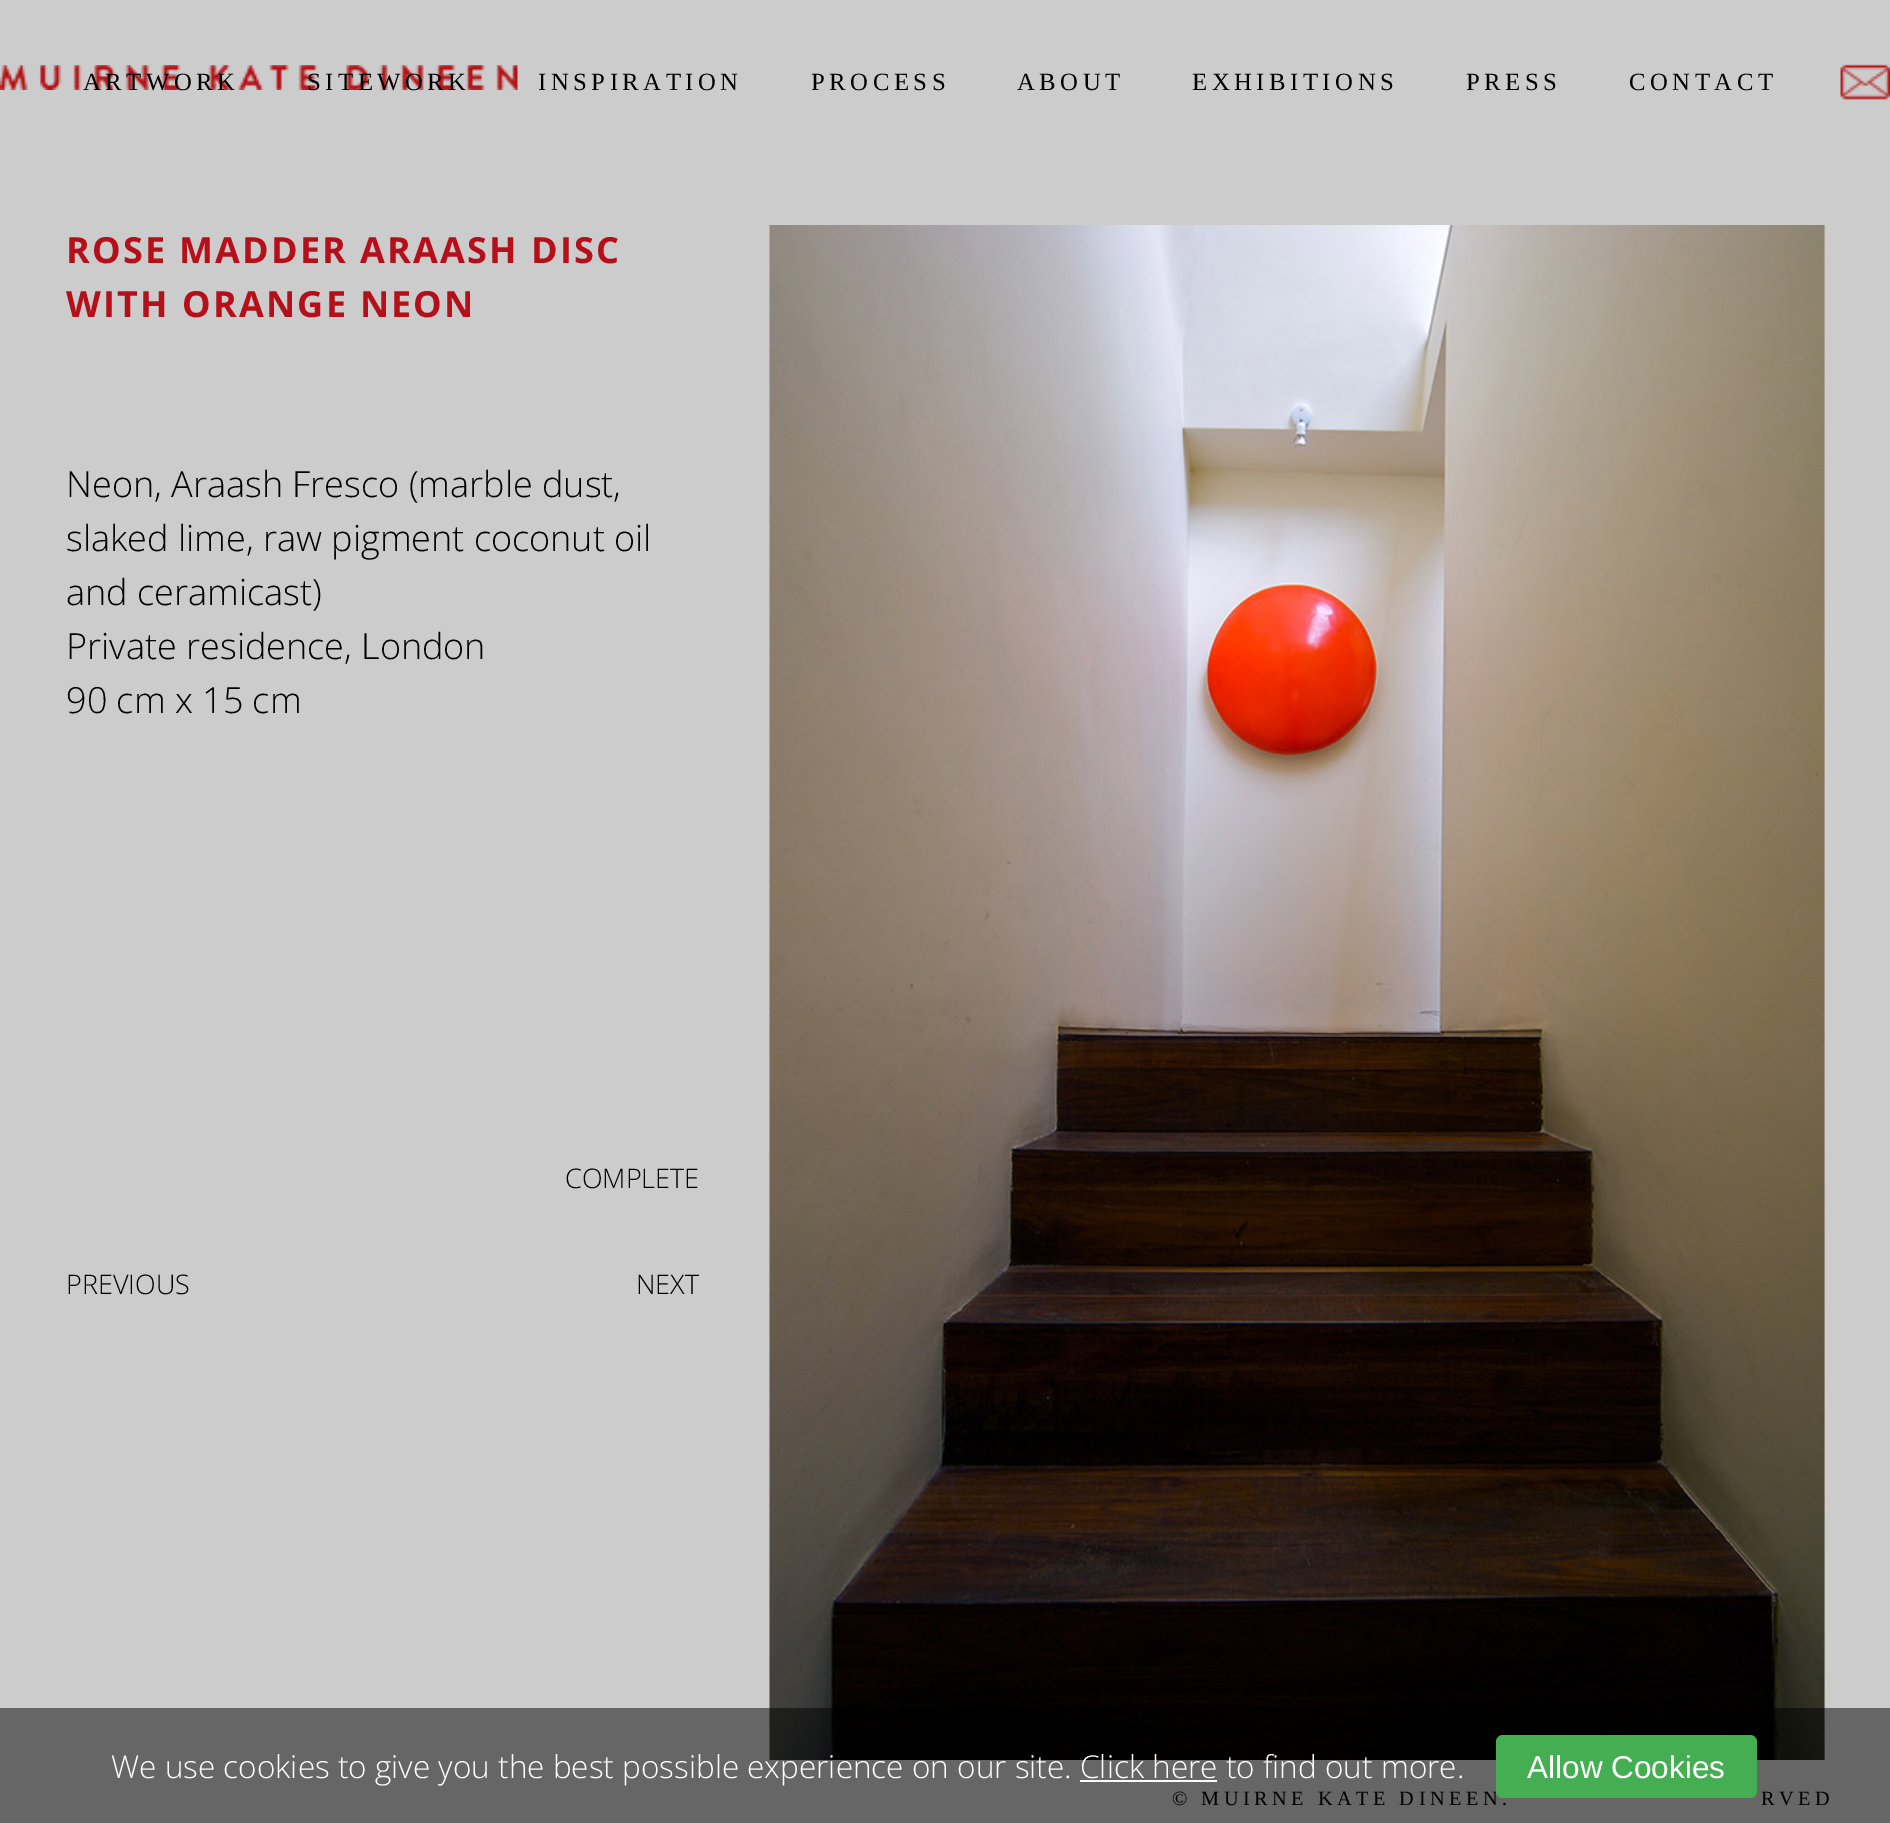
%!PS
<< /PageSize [1890 1823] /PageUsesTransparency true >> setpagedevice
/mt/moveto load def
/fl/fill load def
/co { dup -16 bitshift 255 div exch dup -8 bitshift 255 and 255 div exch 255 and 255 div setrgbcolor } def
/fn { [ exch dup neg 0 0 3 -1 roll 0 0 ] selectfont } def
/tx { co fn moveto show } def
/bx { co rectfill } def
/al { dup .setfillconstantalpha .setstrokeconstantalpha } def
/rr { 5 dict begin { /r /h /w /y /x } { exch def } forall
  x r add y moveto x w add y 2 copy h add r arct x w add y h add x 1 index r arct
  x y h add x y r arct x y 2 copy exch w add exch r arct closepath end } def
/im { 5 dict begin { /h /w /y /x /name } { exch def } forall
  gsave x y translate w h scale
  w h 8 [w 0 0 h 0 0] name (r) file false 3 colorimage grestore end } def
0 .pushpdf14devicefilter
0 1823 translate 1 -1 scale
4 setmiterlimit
0 0 1890 1823 16#CCCCCC bx
(media/1.raw) 0 65 518 25 im
(media/2.raw) 1840 64 50 36 im
(media/3.raw) 769 225 1056 1535 im
/LiberationSerif-Regular 24.75 fn
16#000000 co
83 90 mt 4.5 0 (ARTWORK) ashow
307 90 mt 4.5 0 (SITEWORK) ashow
538 90 mt 4.5 0 (INSPIRATION) ashow
811 90 mt 4.5 0 (PROCESS) ashow
1017 90 mt 4.5 0 (ABOUT) ashow
1192 90 mt 4.5 0 (EXHIBITIONS) ashow
1466 90 mt 4.5 0 (PRESS) ashow
1629 90 mt 4.5 0 (CONTACT) ashow
/OpenSans-Bold 36 fn
16#B50F19 co
66 263 mt 2.25 0 (ROSE MADDER ARAASH DISC) ashow
66 317 mt 2.25 0 (WITH ORANGE NEON) ashow
(Neon, Araash Fresco \(marble dust,) 66 497 /OpenSans-Light 36 16#000000 tx
(slaked lime, raw pigment coconut oil) 66 551 /OpenSans-Light 36 16#000000 tx
(and ceramicast\)) 66 605 /OpenSans-Light 36 16#000000 tx
(Private residence, London) 66 659 /OpenSans-Light 36 16#000000 tx
(90 cm x 15 cm) 66 713 /OpenSans-Light 36 16#000000 tx
(COMPLETE) 565 1188 /OpenSans-Light 27 16#000000 tx
(PREVIOUS) 66 1294 /OpenSans-Light 27 16#000000 tx
(NEXT) 636 1294 /OpenSans-Light 27 16#000000 tx
/LiberationSerif-Regular 20.25 fn
1172 1805 mt 4.5 0 (© MUIRNE KATE DINEEN.) ashow
1761 1805 mt 4.5 0 (RVED) ashow
0.5 al
0 1708 1890 115 16#000000 bx
1 al
16#45AE52 co
1496 1735 261 63 7 rr fl
(Allow Cookies) 1527 1778 /LiberationSans-Regular 31.5 16#FFFFFF tx
1080 1780 137 2 16#FFFFFF bx
(We use cookies to give you the best possible experience on our site. Click here to find out more.) 111 1778 /OpenSans-Light 31.5 16#FFFFFF tx
.poppdf14devicefilter showpage
